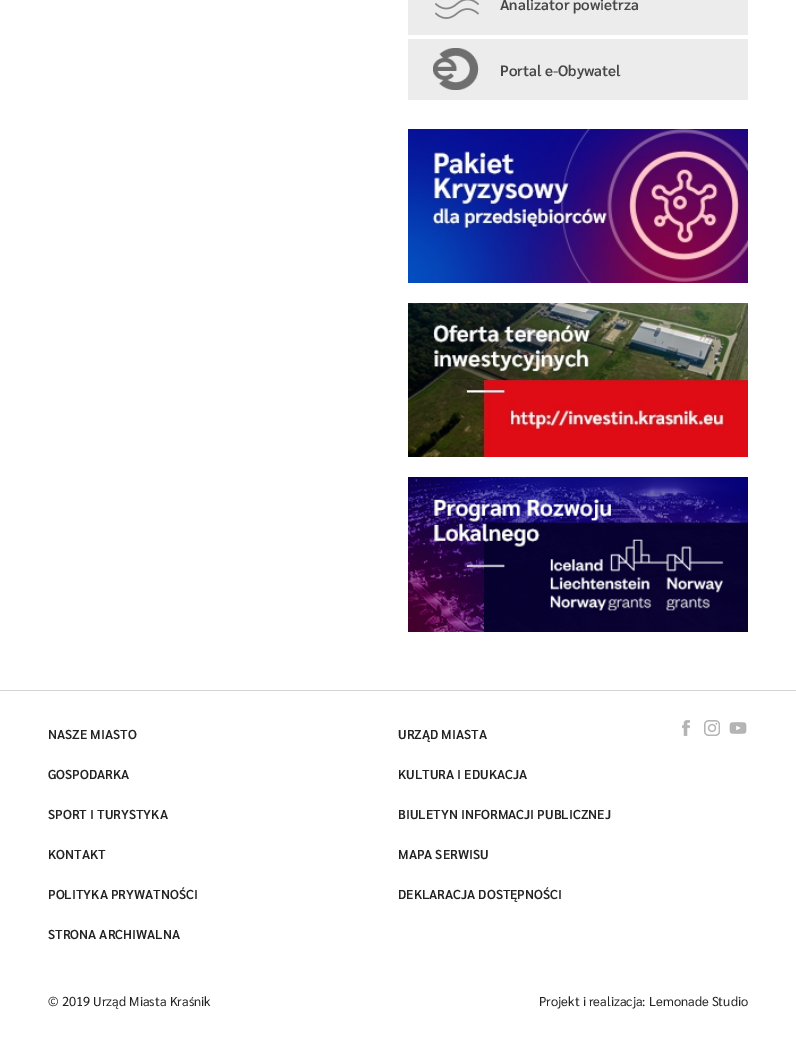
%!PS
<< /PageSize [796 1056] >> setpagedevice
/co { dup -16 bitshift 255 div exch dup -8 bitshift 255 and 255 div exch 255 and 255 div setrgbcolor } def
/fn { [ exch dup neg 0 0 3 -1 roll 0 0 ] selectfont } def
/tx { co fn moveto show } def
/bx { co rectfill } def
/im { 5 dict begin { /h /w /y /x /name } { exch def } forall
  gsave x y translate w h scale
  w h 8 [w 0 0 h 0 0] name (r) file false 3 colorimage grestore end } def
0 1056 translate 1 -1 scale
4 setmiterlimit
0 0 796 1056 16#FFFFFF bx
408 0 340 35 16#ECECEC bx
(media/1.raw) 435 0 44 19 im
408 39 340 61 16#ECECEC bx
(media/2.raw) 433 48 46 42 im
(media/3.raw) 408 129 340 154 im
(media/4.raw) 408 303 340 154 im
(media/5.raw) 408 477 340 155 im
0 690 796 1 16#D4D4D4 bx
(media/6.raw) 682 720 8 16 im
(media/7.raw) 704 720 16 16 im
(media/8.raw) 729 722 18 12 im
(Analizator powietrza) 500 10 /Sarabun-SemiBold 15 16#474747 tx
(Portal e-Obywatel) 500 76 /Sarabun-SemiBold 15 16#474747 tx
(NASZE MIASTO) 48 739 /Sarabun-SemiBold 13 16#232323 tx
(URZĄD MIASTA) 398 739 /Sarabun-SemiBold 13 16#232323 tx
(GOSPODARKA) 48 779 /Sarabun-SemiBold 13 16#232323 tx
(KULTURA I EDUKACJA) 398 779 /Sarabun-SemiBold 13 16#232323 tx
(SPORT I TURYSTYKA) 48 819 /Sarabun-SemiBold 13 16#232323 tx
(BIULETYN INFORMACJI PUBLICZNEJ) 398 819 /Sarabun-SemiBold 13 16#232323 tx
(KONTAKT) 48 859 /Sarabun-SemiBold 13 16#232323 tx
(MAPA SERWISU) 398 859 /Sarabun-SemiBold 13 16#232323 tx
(POLITYKA PRYWATNOŚCI) 48 899 /Sarabun-SemiBold 13 16#232323 tx
(DEKLARACJA DOSTĘPNOŚCI) 398 899 /Sarabun-SemiBold 13 16#232323 tx
(STRONA ARCHIWALNA) 48 939 /Sarabun-SemiBold 13 16#232323 tx
(© 2019 Urząd Miasta Kraśnik) 48 1006 /Sarabun-Regular 13 16#232323 tx
(Projekt i realizacja: Lemonade Studio) 539 1006 /Sarabun-Regular 13 16#232323 tx
showpage
